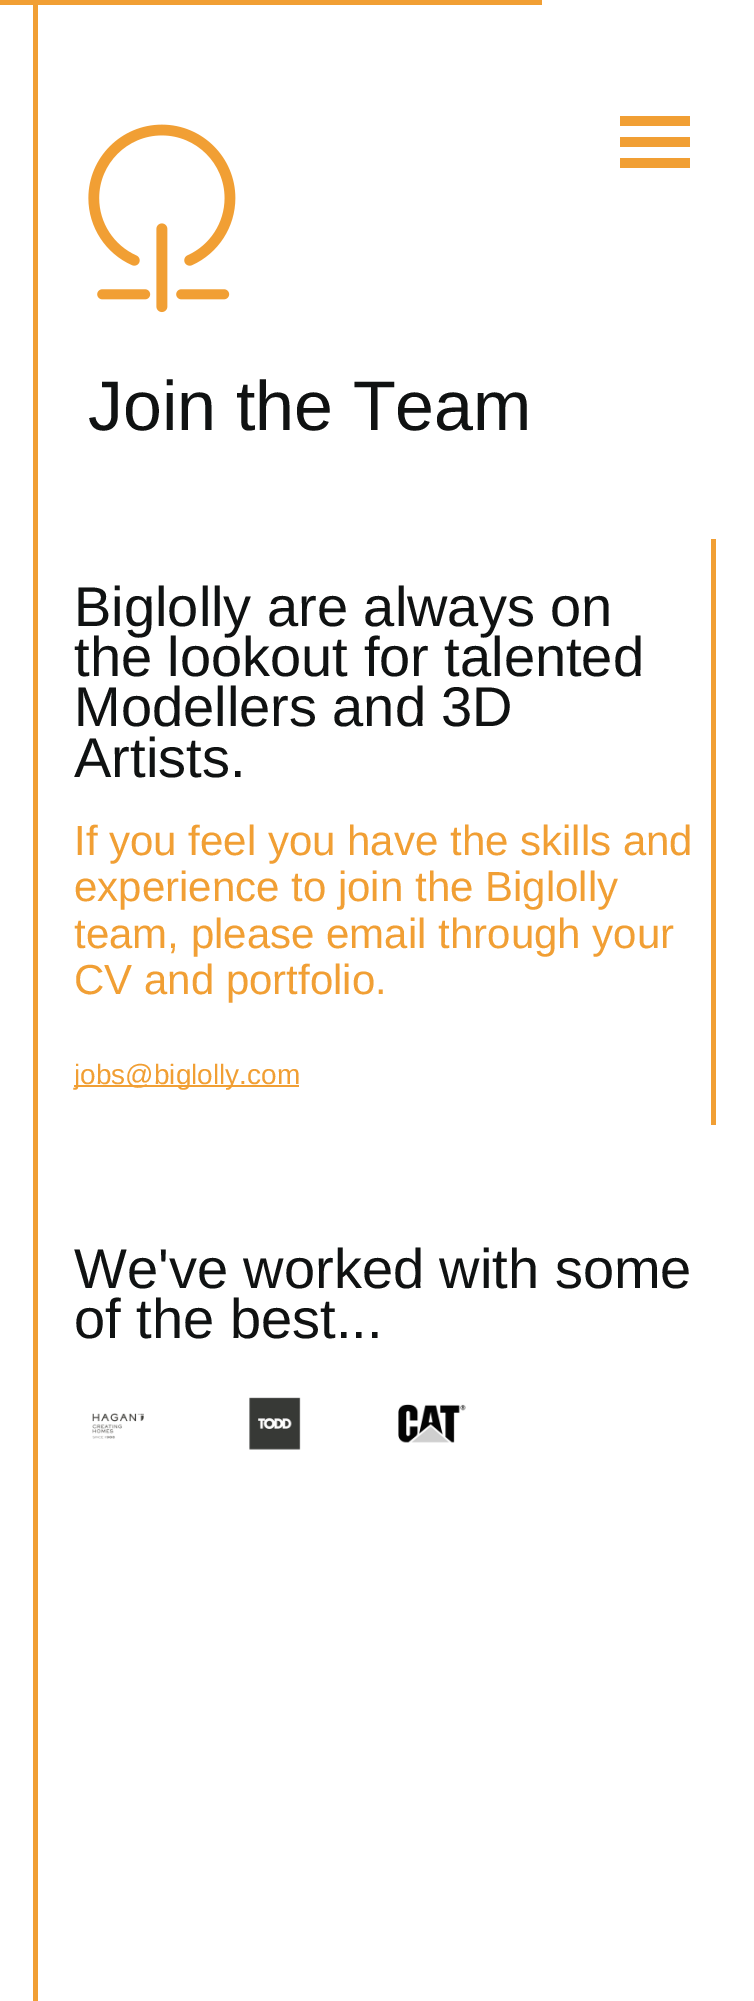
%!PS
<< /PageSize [754 2001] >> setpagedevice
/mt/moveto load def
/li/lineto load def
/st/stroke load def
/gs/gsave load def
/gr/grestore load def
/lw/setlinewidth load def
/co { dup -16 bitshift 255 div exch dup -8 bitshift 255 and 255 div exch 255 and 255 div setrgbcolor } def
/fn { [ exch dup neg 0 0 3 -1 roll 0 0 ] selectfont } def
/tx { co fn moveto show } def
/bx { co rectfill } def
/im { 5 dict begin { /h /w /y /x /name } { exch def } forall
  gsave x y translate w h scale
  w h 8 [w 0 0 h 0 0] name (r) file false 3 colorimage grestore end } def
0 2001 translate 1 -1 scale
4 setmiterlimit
0 0 754 2001 16#FFFFFF bx
gs
0 0 754 5 rectclip
16#F19F34 co
6.3 lw
0 2.5 mt 542 2.5 li st
gr
620 137 70 10 16#F19F34 bx
620 116 70 10 16#F19F34 bx
620 158 70 10 16#F19F34 bx
33 5 5 1996 16#F19F34 bx
(media/1.raw) 88 124 148 189 im
711 539 5 586 16#F19F34 bx
74 1085 225 2 16#F19F34 bx
(media/2.raw) 92 1413 52 26 im
(media/3.raw) 249 1397 52 53 im
(media/4.raw) 398 1404 68 39 im
(Join the Team) 88 430 /LiberationSans-Regular 70 16#101212 tx
(Biglolly are always on) 74 626 /LiberationSans-Regular 56 16#101212 tx
(the lookout for talented) 74 676 /LiberationSans-Regular 56 16#101212 tx
(Modellers and 3D) 74 726 /LiberationSans-Regular 56 16#101212 tx
(Artists.) 74 777 /LiberationSans-Regular 56 16#101212 tx
(If you feel you have the skills and) 74 855 /LiberationSans-Regular 42 16#F19F34 tx
(experience to join the Biglolly) 74 901 /LiberationSans-Regular 42 16#F19F34 tx
(team, please email through your) 74 948 /LiberationSans-Regular 42 16#F19F34 tx
(CV and portfolio.) 74 994 /LiberationSans-Regular 42 16#F19F34 tx
(jobs@biglolly.com) 74 1084 /LiberationSans-Regular 28 16#F19F34 tx
(We've worked with some) 74 1288 /LiberationSans-Regular 56 16#101212 tx
(of the best...) 74 1338 /LiberationSans-Regular 56 16#101212 tx
showpage
